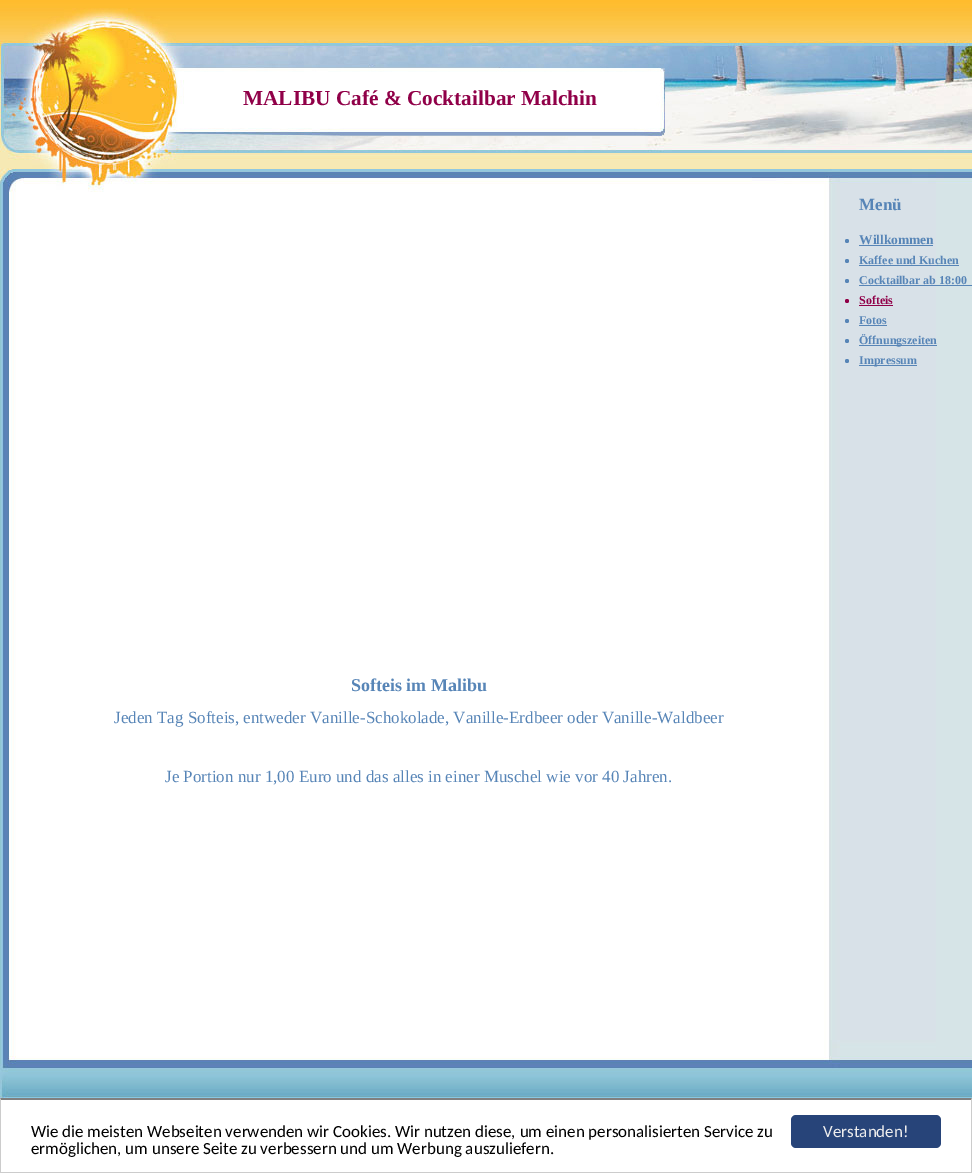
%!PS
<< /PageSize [972 1173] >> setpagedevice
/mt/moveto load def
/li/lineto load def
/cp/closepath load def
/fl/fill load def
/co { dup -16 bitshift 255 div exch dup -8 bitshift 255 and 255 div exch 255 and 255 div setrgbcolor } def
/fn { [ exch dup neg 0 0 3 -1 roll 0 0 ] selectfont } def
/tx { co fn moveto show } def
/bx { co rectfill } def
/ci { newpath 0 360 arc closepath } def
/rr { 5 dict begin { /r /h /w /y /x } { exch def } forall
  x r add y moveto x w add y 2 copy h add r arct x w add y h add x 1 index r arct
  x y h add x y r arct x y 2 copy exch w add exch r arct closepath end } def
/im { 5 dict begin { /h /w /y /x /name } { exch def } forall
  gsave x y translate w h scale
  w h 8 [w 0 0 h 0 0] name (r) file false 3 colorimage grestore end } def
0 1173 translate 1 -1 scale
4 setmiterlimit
0 0 972 1173 16#FFFFFF bx
(media/1.raw) 0 0 972 8 im
(media/2.raw) 0 8 972 184 im
(media/3.raw) 0 192 972 848 im
16#5785B7 co
847 241 2 ci fl
859 245 74 1 16#5785B7 bx
847 261 2 ci fl
859 265 100 1 16#5785B7 bx
847 281 2 ci fl
859 285 113 1 16#5785B7 bx
16#900048 co
847 301 2 ci fl
859 305 34 1 16#900048 bx
16#5785B7 co
847 321 2 ci fl
859 325 28 1 16#5785B7 bx
847 341 2 ci fl
859 345 78 1 16#5785B7 bx
847 361 2 ci fl
859 365 58 1 16#5785B7 bx
(media/4.raw) 0 1040 972 60 im
16#808080 co
0 1098 mt 972 1098 li 971 1100 li 1 1100 li cp fl
16#CCCCCC co
972 1098 mt 972 1173 li 971 1172 li 971 1100 li cp fl
0 1172 972 1 16#CCCCCC bx
0 1173 mt 0 1098 li 1 1100 li 1 1172 li cp fl
16#274479 co
791 1115 150 33 5 rr fl
(MALIBU Café & Cocktailbar Malchin) 243 105 /LiberationSerif-Bold 21.3 16#900048 tx
(Menü) 859 210 /LiberationSerif-Bold 17 16#5785B7 tx
(Willkommen) 859 244 /LiberationSerif-Bold 13.5 16#5785B7 tx
(Kaffee und Kuchen) 859 264 /LiberationSerif-Bold 12 16#5785B7 tx
(Cocktailbar ab 18:00) 859 284 /LiberationSerif-Bold 12 16#5785B7 tx
(Softeis) 859 304 /LiberationSerif-Bold 12 16#900048 tx
(Fotos) 859 324 /LiberationSerif-Bold 12 16#5785B7 tx
(Öffnungszeiten) 859 344 /LiberationSerif-Bold 12 16#5785B7 tx
(Impressum) 859 364 /LiberationSerif-Bold 12 16#5785B7 tx
(Softeis im Malibu) 351 691 /LiberationSerif-Bold 18 16#5785B7 tx
(Jeden Tag Softeis, entweder Vanille-Schokolade, Vanille-Erdbeer oder Vanille-Waldbeer) 114 723 /LiberationSerif-Regular 17 16#5785B7 tx
(Je Portion nur 1,00 Euro und das alles in einer Muschel wie vor 40 Jahren.) 165 782 /LiberationSerif-Regular 17 16#5785B7 tx
(Wie die meisten Webseiten verwenden wir Cookies. Wir nutzen diese, um einen personalisierten Service zu) 31 1137 /Carlito-Regular 17 16#000000 tx
(ermöglichen, um unsere Seite zu verbessern und um Werbung auszuliefern.) 31 1154 /Carlito-Regular 17 16#000000 tx
(Verstanden!) 823 1137 /Carlito-Regular 17 16#EEEEEE tx
showpage
